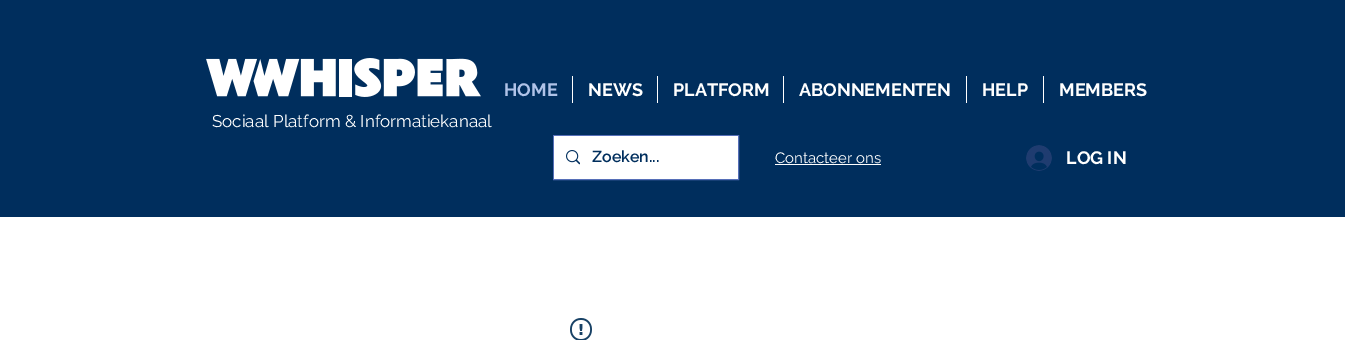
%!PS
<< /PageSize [1345 340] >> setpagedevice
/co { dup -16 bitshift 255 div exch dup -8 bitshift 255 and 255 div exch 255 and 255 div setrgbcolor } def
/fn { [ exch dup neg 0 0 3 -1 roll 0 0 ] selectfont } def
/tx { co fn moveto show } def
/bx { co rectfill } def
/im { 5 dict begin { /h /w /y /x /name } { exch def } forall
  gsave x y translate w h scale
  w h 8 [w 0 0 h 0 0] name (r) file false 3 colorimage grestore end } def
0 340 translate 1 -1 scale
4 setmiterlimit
0 0 1345 340 16#FFFFFF bx
0 0 1345 217 16#002E5D bx
(media/1.raw) 206 58 275 39 im
572 76 1 27 16#FFFFFF bx
657 76 1 27 16#FFFFFF bx
783 76 1 27 16#FFFFFF bx
966 76 1 27 16#FFFFFF bx
1043 76 1 27 16#FFFFFF bx
16#566FB8 co
553.5 135.5 185 44 rectstroke
554 136 184 43 16#FFFFFF bx
(media/2.raw) 566 150 14 15 im
775 164 106 1 16#FFFFFF bx
(media/3.raw) 1026 145 26 26 im
(media/4.raw) 570 318 22 22 im
(HOME) 504 96 /Raleway-Bold 18 16#B0C3E8 tx
(NEWS) 588 96 /Raleway-Bold 18 16#FFFFFF tx
(PLATFORM) 673 96 /Raleway-Bold 18 16#FFFFFF tx
(ABONNEMENTEN) 799 96 /Raleway-Bold 18 16#FFFFFF tx
(HELP) 982 96 /Raleway-Bold 18 16#FFFFFF tx
(MEMBERS) 1059 96 /Raleway-Bold 18 16#FFFFFF tx
(Sociaal Platform & Informatiekanaal) 212 127 /Raleway-Regular 17 16#FFFFFF tx
(Zoeken...) 592 162 /Raleway-SemiBold 16 16#002E5D tx
(Contacteer ons) 775 163 /Raleway-Regular 15 16#FFFFFF tx
(LOG IN) 1066 164 /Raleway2-Bold 18 16#FFFFFF tx
showpage
